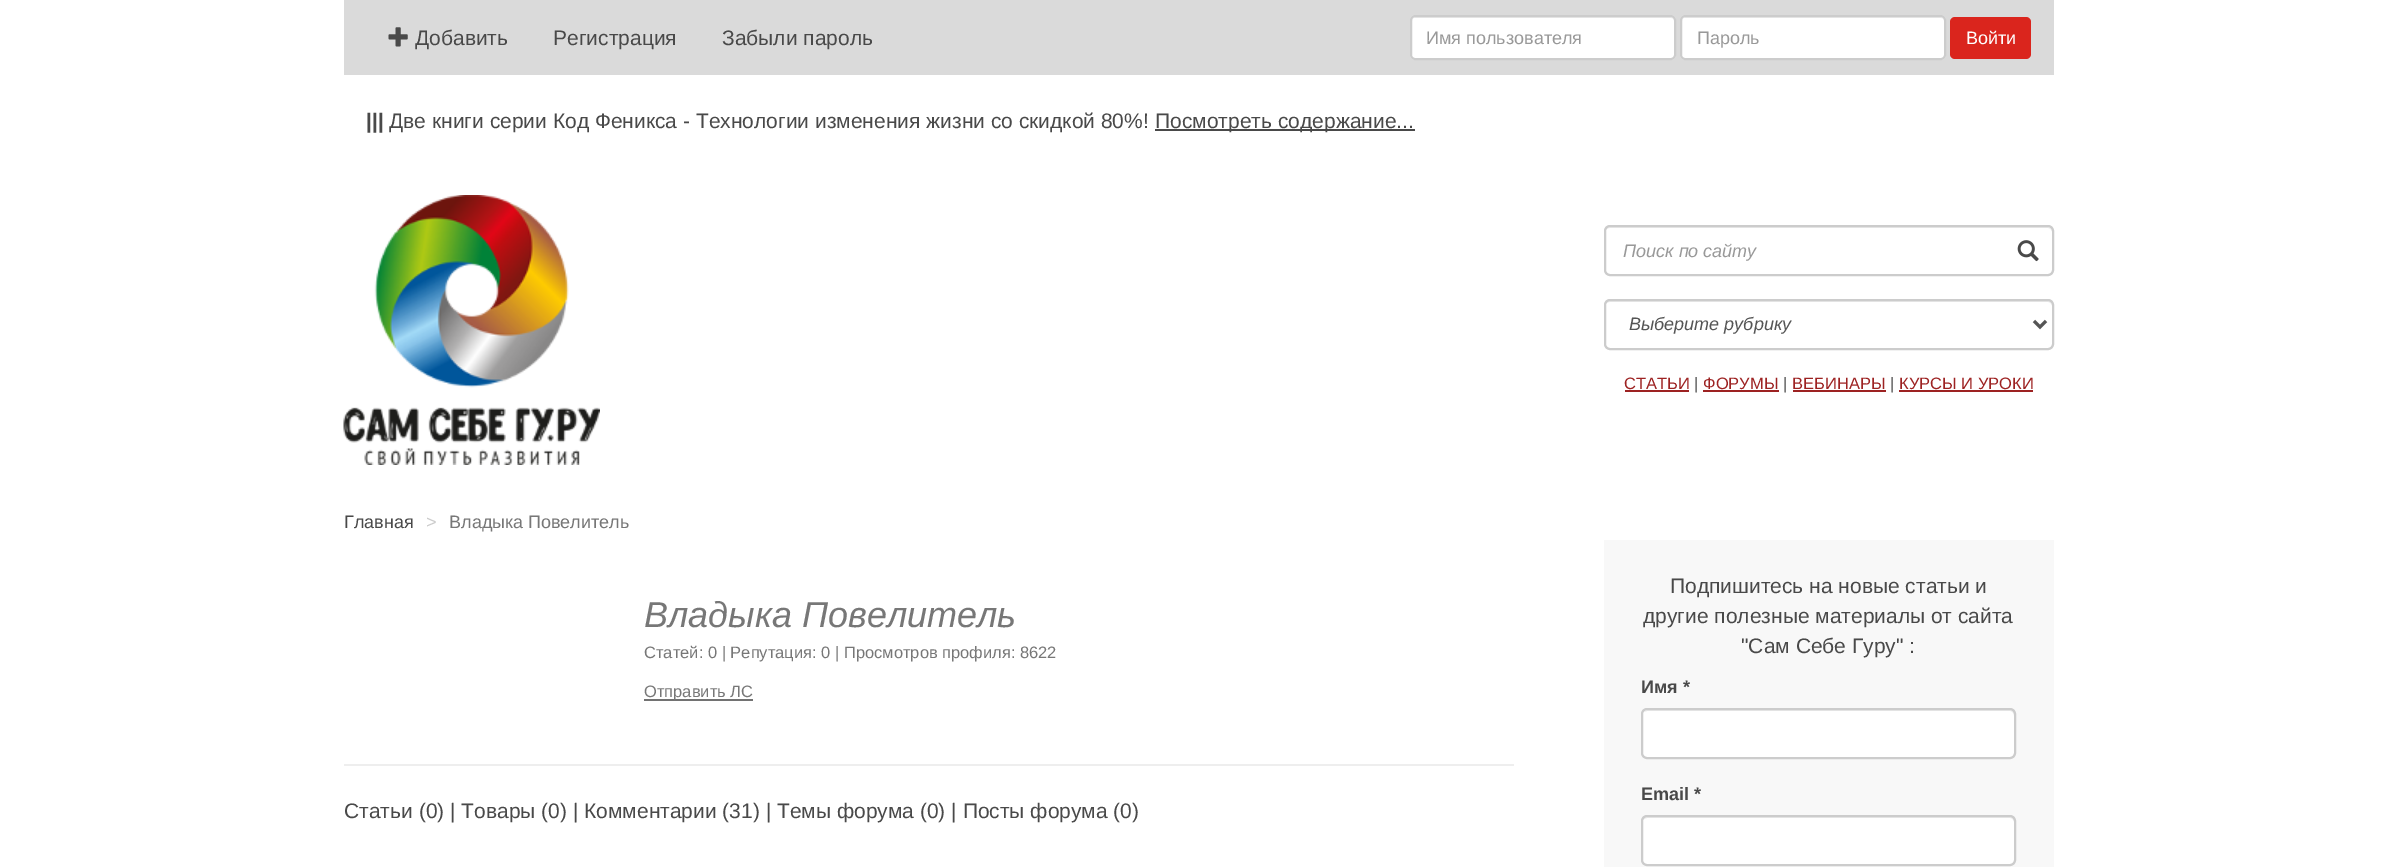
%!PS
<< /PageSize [2396 867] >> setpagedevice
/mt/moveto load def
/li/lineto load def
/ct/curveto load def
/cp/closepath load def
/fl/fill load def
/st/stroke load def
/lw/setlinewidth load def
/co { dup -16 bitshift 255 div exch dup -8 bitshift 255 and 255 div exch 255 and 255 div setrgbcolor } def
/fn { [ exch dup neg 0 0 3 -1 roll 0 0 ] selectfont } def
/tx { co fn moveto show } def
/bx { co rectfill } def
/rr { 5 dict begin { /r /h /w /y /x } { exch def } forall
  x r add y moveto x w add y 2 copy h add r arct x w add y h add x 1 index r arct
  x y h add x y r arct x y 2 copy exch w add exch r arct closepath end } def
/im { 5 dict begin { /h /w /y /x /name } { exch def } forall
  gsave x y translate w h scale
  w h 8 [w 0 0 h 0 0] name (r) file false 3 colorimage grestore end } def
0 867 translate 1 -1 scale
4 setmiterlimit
0 0 2396 867 16#FFFFFF bx
344 0 1710 75 16#DADADA bx
(media/1.raw) 388 27 20 20 im
16#FFFFFF co
1410 15 266 45 5 rr fl
16#ECECEC co
1414 18 mt 1671 18 li 1673 18 1674 19 1674 21 ct 1674 20 li 1674 18 1673 17 1671 17 ct 1415 17 li 1413 17 1412 18 1412 20 ct 1412 21 li 1412 19 1413 18 1414 18 ct cp fl
16#CCCCCC co
2 lw
1411 16 264 43 4 rr st
16#FFFFFF co
1680 15 266 45 5 rr fl
16#ECECEC co
1684 18 mt 1941 18 li 1943 18 1944 19 1944 21 ct 1944 20 li 1944 18 1943 17 1941 17 ct 1685 17 li 1683 17 1682 18 1682 20 ct 1682 21 li 1682 19 1683 18 1684 18 ct cp fl
16#CCCCCC co
1681 16 264 43 4 rr st
16#DA251D co
1950 17 81 42 5 rr fl
1155 129 260 2 16#494949 bx
(media/2.raw) 343 195 257 270 im
16#ECECEC co
1610 228 mt 2048 228 li 2050 228 2052 230 2052 232 ct 2052 229 2050 227 2047 227 ct 1610 227 li 1607 227 1605 229 1605 232 ct 1605 230 1607 228 1610 228 ct cp fl
16#CCCCCC co
1605 226 448 49 5 rr st
(media/3.raw) 2017 240 22 22 im
16#ECECEC co
1610 302 mt 2048 302 li 2050 302 2052 304 2052 306 ct 2052 303 2050 300 2047 300 ct 1610 300 li 1607 300 1605 303 1605 306 ct 1605 304 1607 302 1610 302 ct cp fl
16#CCCCCC co
1605 300 448 49 5 rr st
16#555555 co
3 lw
2034 321 mt 2040 327 li 2046 321 li st
1625 390 64 2 16#9D2222 bx
1703 390 76 2 16#9D2222 bx
1793 390 93 2 16#9D2222 bx
1899 390 134 2 16#9D2222 bx
644 699 109 2 16#727272 bx
344 764 1170 2 16#EEEEEE bx
1604 540 450 327 16#F8F8F8 bx
16#FFFFFF co
1641 708 375 51 6 rr fl
16#ECECEC co
1647 711 mt 2010 711 li 2012 711 2014 713 2014 716 ct 2014 754 li 2013 757 li 2014 756 2015 754 2015 753 ct 2015 715 li 2015 712 2013 710 2010 710 ct 1648 710 li 1646 710 1645 711 1644 712 ct cp fl
16#CCCCCC co
2 lw
1642 709 373 49 5 rr st
16#FFFFFF co
1641 815 375 51 6 rr fl
16#ECECEC co
1647 818 mt 2010 818 li 2012 818 2014 820 2014 822 ct 2014 862 li 2015 861 2015 860 2015 859 ct 2015 821 li 2015 818 2013 816 2010 816 ct 1648 816 li 1646 816 1644 818 1643 820 ct 1644 819 1646 818 1647 818 ct cp fl
16#CCCCCC co
1642 816 373 49 5 rr st
(Добавить) 415 45 /LiberationSans-Regular 21 16#494949 tx
(Регистрация) 553 45 /LiberationSans-Regular 21 16#494949 tx
(Забыли пароль) 722 45 /LiberationSans-Regular 21 16#494949 tx
(Имя пользователя) 1426 44 /LiberationSans-Regular 18 16#999999 tx
(Пароль) 1697 44 /LiberationSans-Regular 18 16#999999 tx
(Войти) 1966 44 /LiberationSans-Regular 18 16#FFFFFF tx
(|||) 366 128 /LiberationSans-Bold 21 16#494949 tx
(Две книги серии Код Феникса - Технологии изменения жизни со скидкой 80%!) 389 128 /LiberationSans-Regular 21 16#494949 tx
(Посмотреть содержание...) 1155 128 /LiberationSans-Regular 21 16#494949 tx
(Поиск по сайту) 1623 257 /LiberationSans-Italic 18 16#999999 tx
(Выберите рубрику) 1629 330 /LiberationSans-Italic 18 16#555555 tx
(СТАТЬИ) 1624 389 /LiberationSans-Regular 16.5 16#9D2222 tx
(|) 1694 389 /LiberationSans-Regular 16.5 16#494949 tx
(ФОРУМЫ) 1703 389 /LiberationSans-Regular 16.5 16#9D2222 tx
(|) 1783 389 /LiberationSans-Regular 16.5 16#494949 tx
(ВЕБИНАРЫ) 1792 389 /LiberationSans-Regular 16.5 16#9D2222 tx
(|) 1890 389 /LiberationSans-Regular 16.5 16#494949 tx
(КУРСЫ И УРОКИ) 1899 389 /LiberationSans-Regular 16.5 16#9D2222 tx
(Главная) 344 528 /LiberationSans-Regular 18 16#494949 tx
(>) 426 528 /LiberationSans-Regular 18 16#CCCCCC tx
(Владыка Повелитель) 449 528 /LiberationSans-Regular 18 16#777777 tx
(Владыка Повелитель) 644 627 /LiberationSans-Italic 36 16#777777 tx
(Cтатей: 0 | Репутация: 0 | Просмотров профиля: 8622) 644 658 /LiberationSans-Regular 16.5 16#777777 tx
(Отправить ЛС) 644 697 /LiberationSans-Regular 16.5 16#777777 tx
(Статьи \(0\) | Товары \(0\) | Комментарии \(31\) | Темы форума \(0\) | Посты форума \(0\)) 344 818 /LiberationSans-Regular 21 16#494949 tx
(Подпишитесь на новые статьи и) 1670 593 /LiberationSans-Regular 21 16#494949 tx
(другие полезные материалы от сайта) 1643 623 /LiberationSans-Regular 21 16#494949 tx
("Сам Себе Гуру" :) 1741 653 /LiberationSans-Regular 21 16#494949 tx
(Имя *) 1641 693 /LiberationSans-Bold 18 16#494949 tx
(Email *) 1641 800 /LiberationSans-Bold 18 16#494949 tx
showpage
